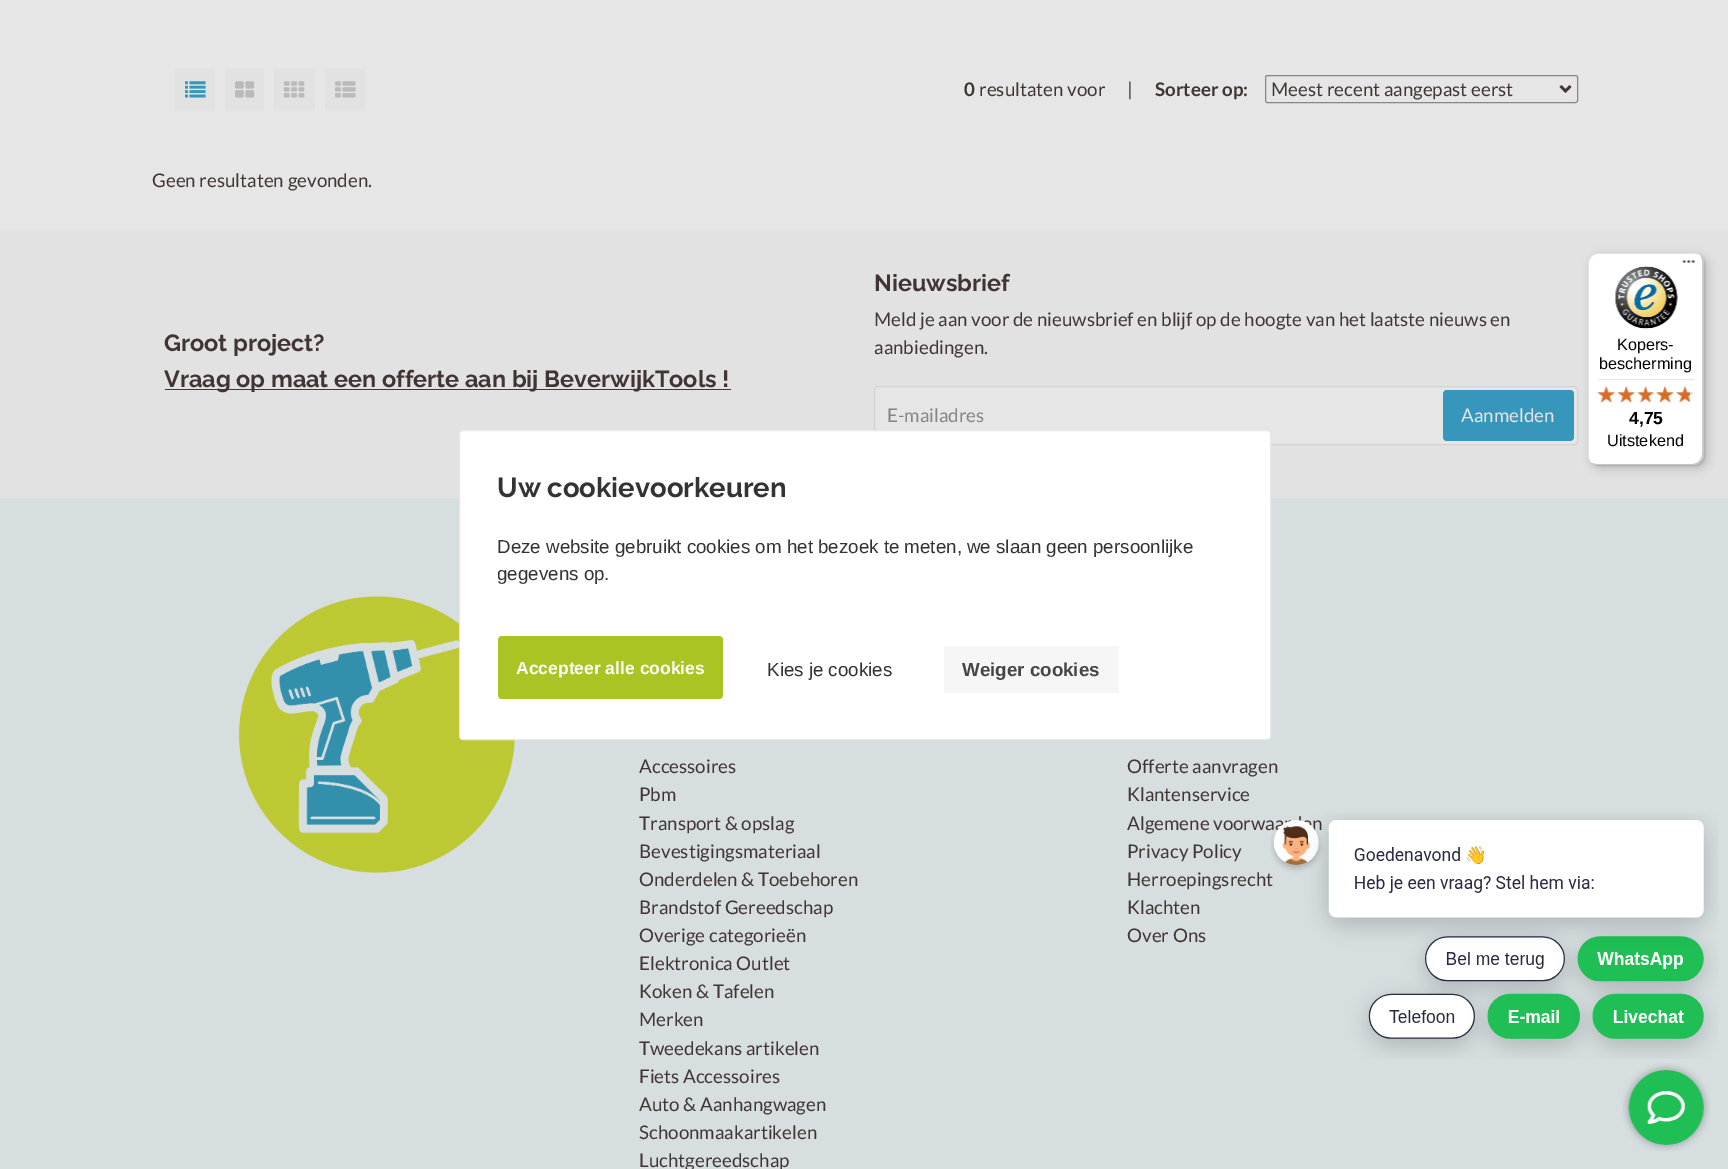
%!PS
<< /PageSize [1728 1169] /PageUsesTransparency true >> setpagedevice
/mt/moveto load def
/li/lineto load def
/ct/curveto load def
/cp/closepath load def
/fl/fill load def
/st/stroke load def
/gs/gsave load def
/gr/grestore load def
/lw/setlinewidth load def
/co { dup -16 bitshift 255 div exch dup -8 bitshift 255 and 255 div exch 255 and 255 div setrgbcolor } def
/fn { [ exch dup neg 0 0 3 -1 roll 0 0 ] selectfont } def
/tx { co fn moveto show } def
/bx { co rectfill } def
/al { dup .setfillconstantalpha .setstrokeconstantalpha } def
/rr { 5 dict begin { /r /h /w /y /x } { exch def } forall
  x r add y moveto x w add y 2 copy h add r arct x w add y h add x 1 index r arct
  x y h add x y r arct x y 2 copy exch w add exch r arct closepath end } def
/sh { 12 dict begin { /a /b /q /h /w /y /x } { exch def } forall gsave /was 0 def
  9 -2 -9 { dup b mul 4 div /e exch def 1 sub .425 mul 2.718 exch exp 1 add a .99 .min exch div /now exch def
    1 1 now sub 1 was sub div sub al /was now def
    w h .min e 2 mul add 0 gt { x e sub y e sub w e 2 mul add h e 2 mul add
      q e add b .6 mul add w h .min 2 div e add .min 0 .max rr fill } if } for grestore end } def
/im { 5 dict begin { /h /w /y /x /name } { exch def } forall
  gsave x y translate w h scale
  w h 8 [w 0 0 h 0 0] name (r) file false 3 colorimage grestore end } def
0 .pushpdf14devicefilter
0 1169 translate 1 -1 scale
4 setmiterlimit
0 0 1728 1169 16#E6E6E6 bx
175 69 40 42 16#E2E2E2 bx
(media/1.raw) 185 81 21 17 im
225 69 39 42 16#E2E2E2 bx
(media/2.raw) 235 81 20 17 im
274 69 41 42 16#E2E2E2 bx
(media/3.raw) 283 81 22 17 im
325 69 40 42 16#E2E2E2 bx
(media/4.raw) 335 81 21 17 im
16#868686 co
1265.5 75.5 312 27 2 rr st
16#453434 co
2.5 lw
1560.5 86 mt 1565.5 91 li 1570.5 86 li st
0 231 1728 267 16#E2E2E2 bx
165 389 566 1 16#453434 bx
16#E6E6E6 co
874.5 386.5 703 58 3.5 rr gs fl gr
16#D2D2D2 co
1 lw
st
16#3796BC co
1443 390 131 51 4 rr fl
16#000000 co
1591 256 117 213 10 5 .15 sh
1589 254 116 212 10 1 .15 sh
16#FFFFFF co
1588 253 116 212 10 rr fl
0.1 al
16#000000 co
1599 254 mt 1695 254 li 1697 254 1699 254 1700 255 ct 1699 254 1696 253 1694 253 ct 1598 253 li 1592 253 1588 257 1588 263 ct 1588 455 li 1588 457 1589 460 1590 461 ct 1589 460 1589 458 1589 456 ct 1589 264 li 1589 258 1593 254 1599 254 ct cp fl
0.2 al
1592 463 mt 1594 464 1596 465 1598 465 ct 1694 465 li 1700 465 1704 461 1704 455 ct 1704 263 li 1704 260 1702 257 1700 255 ct 1701 257 1702 259 1702 261 ct 1702 454 li 1702 459 1698 464 1692 464 ct 1596 464 li 1595 464 1593 464 1592 463 ct cp fl
16#323232 co
1592 463 mt 1593 464 1596 465 1598 465 ct 1694 465 li 1700 465 1704 461 1704 455 ct 1704 263 li 1704 261 1703 258 1702 257 ct 1703 258 1703 260 1703 262 ct 1703 454 li 1703 460 1699 464 1693 464 ct 1597 464 li 1595 464 1593 464 1592 463 ct cp fl
0.3 al
16#FFFFFF co
1592 463 mt 1593 464 1596 465 1598 465 ct 1694 465 li 1700 465 1704 461 1704 455 ct 1704 263 li 1704 261 1703 258 1702 257 ct 1703 258 1703 260 1703 262 ct 1703 454 li 1703 460 1699 464 1693 464 ct 1597 464 li 1595 464 1593 464 1592 463 ct cp fl
1 al
(media/5.raw) 1682 260 13 3 im
(media/6.raw) 1615 266 63 63 im
1598 379 96 1 16#E5E5E5 bx
(media/7.raw) 1597 387 18 15 im
(media/8.raw) 1618 386 17 17 im
(media/9.raw) 1637 387 17 15 im
(media/10.raw) 1656 386 18 17 im
(media/11.raw) 1676 387 18 15 im
(media/12.raw) 1597 386 18 17 im
(media/13.raw) 1617 386 18 17 im
(media/14.raw) 1637 386 17 17 im
(media/15.raw) 1656 386 18 17 im
(media/16.raw) 1676 386 14 17 im
0 498 1728 671 16#D6DEE0 bx
(media/17.raw) 238 596 277 277 im
16#FFFFFF co
459.5 430.5 811 309 3.5 rr gs fl gr
16#E8E8E8 co
st
16#A9C423 co
498 636 225 63 4 rr fl
944 646 175 47 16#F6F6F6 bx
(media/19.raw) 1622 1063 88 88 im
(0) 964 96 /Lato-Bold 18.75 16#413434 tx
(resultaten voor) 979 96 /Lato-Regular 18.75 16#413434 tx
(|) 1127 96 /Lato-Regular 18.75 16#413434 tx
(Sorteer op:) 1155 96 /Lato-Bold 18.75 16#413434 tx
(Meest recent aangepast eerst) 1271 96 /Lato-Regular 18.75 16#413434 tx
(Geen resultaten gevonden.) 152 187 /Lato-Regular 18.75 16#413434 tx
(Groot project?) 164 351 /Raleway-Bold 23.4 16#413434 tx
(Vraag op maat een offerte aan bij BeverwijkTools !) 164 387 /Raleway-Bold 23.4 16#413434 tx
(Nieuwsbrief) 874 291 /Raleway-Bold 23.4 16#413434 tx
(Meld je aan voor de nieuwsbrief en blijf op de hoogte van het laatste nieuws en) 874 326 /Lato-Regular 18.75 16#413434 tx
(aanbiedingen.) 874 354 /Lato-Regular 18.75 16#413434 tx
(E-mailadres) 887 422 /Lato-Regular 18.75 16#858585 tx
(Aanmelden) 1461 422 /Lato-Regular 18.75 16#E6E6E6 tx
(Kopers-) 1617 350 /LiberationSans-Regular 16.25 16#000000 tx
(bescherming) 1599 369 /LiberationSans-Regular 16.25 16#000000 tx
(4,75) 1629 424 /LiberationSans-Bold 17.5 16#000000 tx
(Uitstekend) 1607 446 /LiberationSans-Regular 16.25 16#000000 tx
(Uw cookievoorkeuren) 497 497 /Raleway-Bold 27.5 16#333333 tx
(Deze website gebruikt cookies om het bezoek te meten, we slaan geen persoonlijke) 497 553 /LiberationSans-Regular 18.75 16#333333 tx
gs
498 533 735 53 rectclip
(gegevens op.) 497 580 /LiberationSans-Regular 18.75 16#333333 tx
gr
(Accepteer alle cookies) 516 674 /LiberationSans-Bold 17.5 16#FFFFFF tx
(Kies je cookies) 767 676 /LiberationSans-Regular 18.75 16#333333 tx
(Weiger cookies) 962 676 /LiberationSans-Bold 18.75 16#454545 tx
(Accessoires) 639 773 /Lato-Regular 18.75 16#413434 tx
(Pbm) 639 801 /Lato-Regular 18.75 16#413434 tx
(Transport & opslag) 639 830 /Lato-Regular 18.75 16#413434 tx
(Bevestigingsmateriaal) 639 858 /Lato-Regular 18.75 16#413434 tx
(Onderdelen & Toebehoren) 639 886 /Lato-Regular 18.75 16#413434 tx
(Brandstof Gereedschap) 639 914 /Lato-Regular 18.75 16#413434 tx
(Overige categorieën) 639 942 /Lato-Regular 18.75 16#413434 tx
(Elektronica Outlet) 639 970 /Lato-Regular 18.75 16#413434 tx
(Koken & Tafelen) 639 998 /Lato-Regular 18.75 16#413434 tx
(Merken) 639 1026 /Lato-Regular 18.75 16#413434 tx
(Tweedekans artikelen) 639 1055 /Lato-Regular 18.75 16#413434 tx
(Fiets Accessoires) 639 1083 /Lato-Regular 18.75 16#413434 tx
(Auto & Aanhangwagen) 639 1111 /Lato-Regular 18.75 16#413434 tx
(Schoonmaakartikelen) 639 1139 /Lato-Regular 18.75 16#413434 tx
(Luchtgereedschap) 639 1167 /Lato-Regular 18.75 16#413434 tx
(Offerte aanvragen) 1127 773 /Lato-Regular 18.75 16#413434 tx
(Klantenservice) 1127 801 /Lato-Regular 18.75 16#413434 tx
(Algemene voorwa) 1127 830 /Lato-Regular 18.75 16#413434 tx
(n) 1312 830 /Lato-Regular 18.75 16#413434 tx
(Privacy Policy) 1127 858 /Lato-Regular 18.75 16#413434 tx
(Herroepingsrecht) 1127 886 /Lato-Regular 18.75 16#413434 tx
(Klachten) 1127 914 /Lato-Regular 18.75 16#413434 tx
(Over Ons) 1127 942 /Lato-Regular 18.75 16#413434 tx
(media/18.raw) 1270 812 448 247 im
.poppdf14devicefilter showpage
